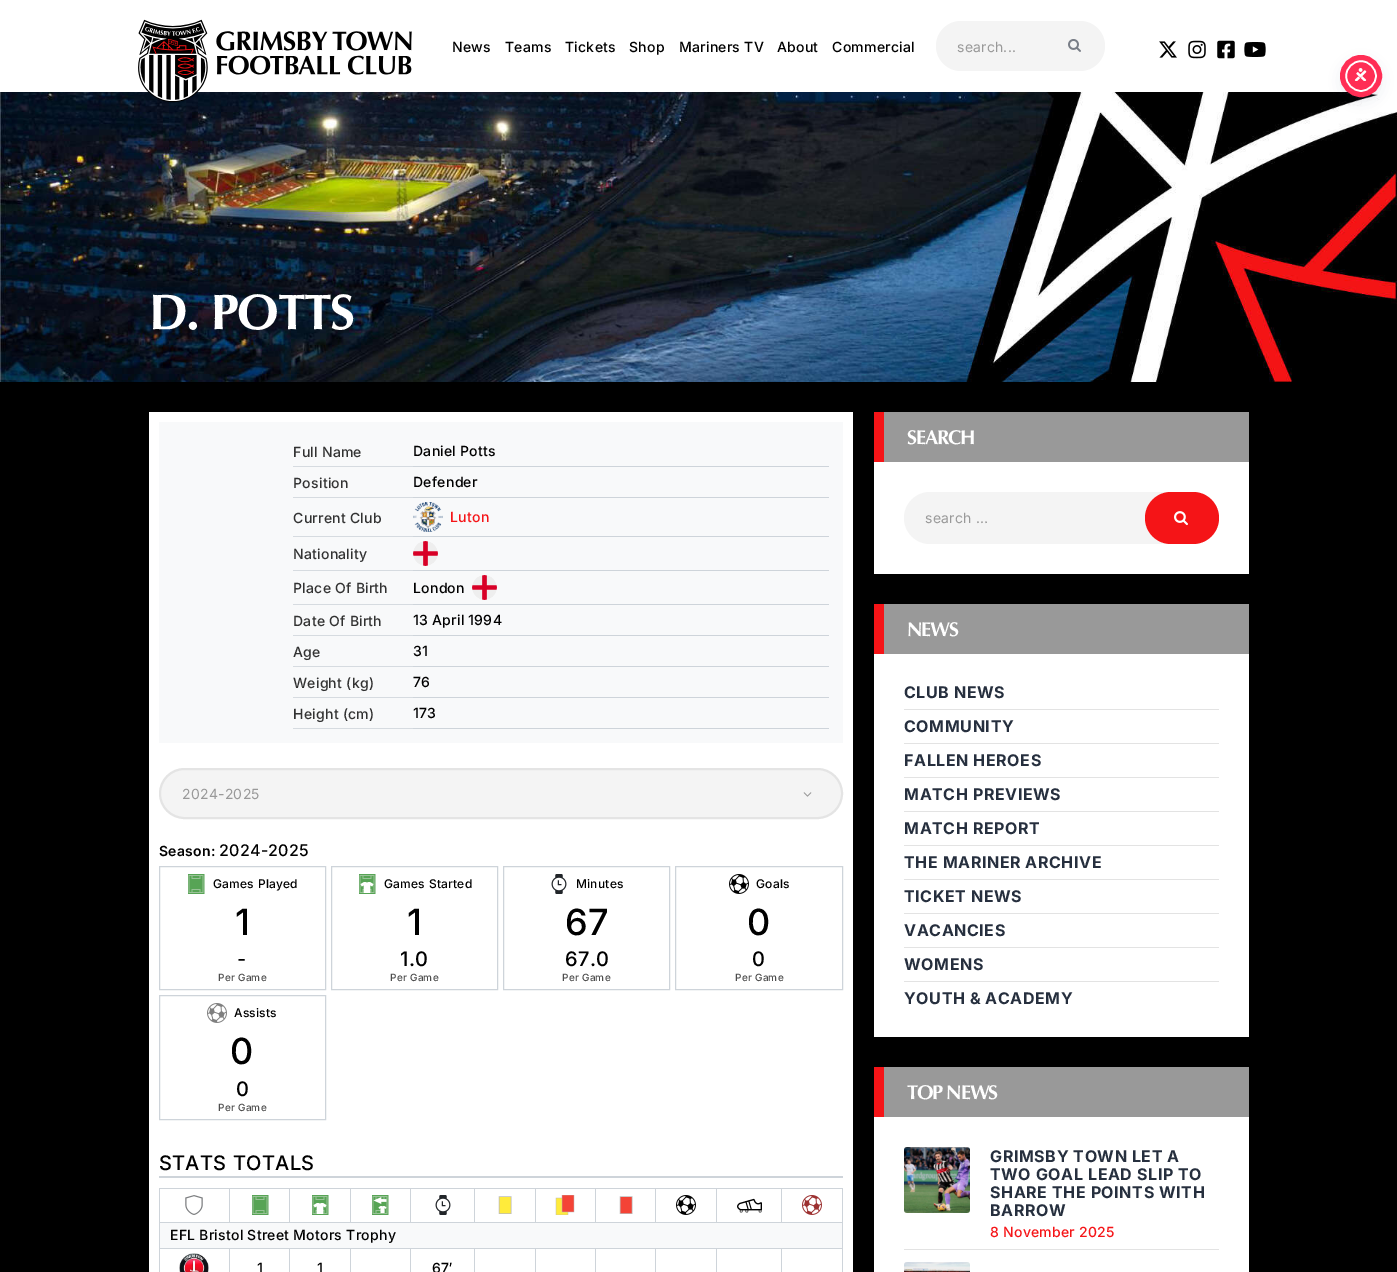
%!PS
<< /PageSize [1397 1272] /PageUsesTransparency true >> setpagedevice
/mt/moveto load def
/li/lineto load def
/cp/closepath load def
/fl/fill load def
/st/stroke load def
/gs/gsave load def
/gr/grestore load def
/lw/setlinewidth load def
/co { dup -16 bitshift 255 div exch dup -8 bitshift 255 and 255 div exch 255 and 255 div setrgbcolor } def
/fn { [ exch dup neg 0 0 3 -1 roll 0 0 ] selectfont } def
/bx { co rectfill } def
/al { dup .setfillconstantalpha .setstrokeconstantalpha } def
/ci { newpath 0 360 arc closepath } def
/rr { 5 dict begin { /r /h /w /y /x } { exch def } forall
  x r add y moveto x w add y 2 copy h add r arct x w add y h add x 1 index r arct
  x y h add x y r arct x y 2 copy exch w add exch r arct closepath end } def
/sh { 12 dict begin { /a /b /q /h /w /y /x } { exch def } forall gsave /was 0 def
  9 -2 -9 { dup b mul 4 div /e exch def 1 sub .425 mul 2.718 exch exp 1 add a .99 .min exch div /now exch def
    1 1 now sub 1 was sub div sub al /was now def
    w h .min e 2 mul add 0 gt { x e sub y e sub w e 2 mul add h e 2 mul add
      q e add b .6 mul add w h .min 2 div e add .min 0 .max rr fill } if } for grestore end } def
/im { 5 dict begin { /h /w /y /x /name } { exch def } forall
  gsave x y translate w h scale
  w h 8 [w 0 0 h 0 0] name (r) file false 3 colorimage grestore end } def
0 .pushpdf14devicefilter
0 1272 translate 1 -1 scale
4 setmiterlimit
0 0 1397 1272 16#000000 bx
0 0 1397 92 16#FFFFFF bx
(media/7.raw) 0 92 1397 290 im
(media/1.raw) 138 19 274 84 im
16#F4F4F4 co
936 21 169 50 25 rr fl
(media/2.raw) 1068 39 13 13 im
(media/3.raw) 1159 41 18 17 im
(media/4.raw) 1188 40 18 19 im
(media/5.raw) 1217 40 18 19 im
(media/6.raw) 1244 42 22 15 im
149 412 704 860 16#FFFFFF bx
159 422 684 321 16#F8F9FA bx
293 466 120 1 16#D6DBE0 bx
413 466 416 1 16#CED4DA bx
293 497 120 1 16#D6DBE0 bx
413 497 416 1 16#CED4DA bx
293 536 120 1 16#D6DBE0 bx
413 536 416 1 16#CED4DA bx
(media/8.raw) 413 502 30 30 im
293 570 120 1 16#D6DBE0 bx
413 570 416 1 16#CED4DA bx
(media/9.raw) 413 541 25 25 im
293 604 120 1 16#D6DBE0 bx
413 604 416 1 16#CED4DA bx
(media/9.raw) 472 575 25 25 im
293 635 120 1 16#D6DBE0 bx
413 635 416 1 16#CED4DA bx
293 666 120 1 16#D6DBE0 bx
413 666 416 1 16#CED4DA bx
293 697 120 1 16#D6DBE0 bx
413 697 416 1 16#CED4DA bx
293 728 120 1 16#D6DBE0 bx
413 728 416 1 16#CED4DA bx
16#F4F4F4 co
160 769 682 49 24.5 rr gs fl gr
16#E4E4E4 co
2 lw
st
(media/10.raw) 803 792 9 5 im
16#CED4DA co
1 lw
159.5 866.5 166 123 rectstroke
(media/11.raw) 188 874 17 20 im
331.5 866.5 166 123 rectstroke
(media/12.raw) 359 874 17 20 im
503.5 866.5 166 123 rectstroke
(media/13.raw) 551 874 16 20 im
675.5 866.5 167 123 rectstroke
(media/14.raw) 729 874 20 20 im
159.5 995.5 166 124 rectstroke
(media/15.raw) 207 1003 20 20 im
159 1176 684 2 16#CED4DA bx
159 1188 684 1 16#CED4DA bx
159 1188 1 84 16#CED4DA bx
229 1189 1 34 16#CED4DA bx
160 1222 70 1 16#CED4DA bx
(media/16.raw) 185 1195 18 20 im
289 1189 1 34 16#CED4DA bx
230 1222 60 1 16#CED4DA bx
(media/11.raw) 252 1195 17 20 im
350 1189 1 34 16#CED4DA bx
290 1222 61 1 16#CED4DA bx
(media/12.raw) 312 1195 17 20 im
410 1189 1 34 16#CED4DA bx
351 1222 60 1 16#CED4DA bx
(media/17.raw) 372 1195 17 20 im
474 1189 1 34 16#CED4DA bx
411 1222 64 1 16#CED4DA bx
(media/13.raw) 435 1195 16 20 im
535 1189 1 34 16#CED4DA bx
475 1222 61 1 16#CED4DA bx
499 1197 12 17 16#FFEB3B bx
16#BBBBBB co
.5 lw
499 1196.5 mt 511 1196.5 li 511 1213.5 li 499 1213.5 li cp st
595 1189 1 34 16#CED4DA bx
536 1222 60 1 16#CED4DA bx
(media/18.raw) 555 1195 20 20 im
655 1189 1 34 16#CED4DA bx
596 1222 60 1 16#CED4DA bx
620 1197 12 17 16#F44336 bx
16#BBBBBB co
620 1196.5 mt 632 1196.5 li 632 1213.5 li 620 1213.5 li cp st
716 1189 1 34 16#CED4DA bx
656 1222 61 1 16#CED4DA bx
(media/14.raw) 676 1195 20 20 im
781 1189 1 34 16#CED4DA bx
717 1222 65 1 16#CED4DA bx
(media/19.raw) 737 1198 25 15 im
842 1189 1 83 16#CED4DA bx
782 1222 61 1 16#CED4DA bx
(media/20.raw) 802 1195 20 20 im
160 1223 682 25 16#F8F9FA bx
160 1248 683 1 16#CED4DA bx
229 1249 1 23 16#CED4DA bx
(media/21.raw) 179 1253 30 19 im
289 1249 1 23 16#CED4DA bx
350 1249 1 23 16#CED4DA bx
410 1249 1 23 16#CED4DA bx
474 1249 1 23 16#CED4DA bx
535 1249 1 23 16#CED4DA bx
595 1249 1 23 16#CED4DA bx
655 1249 1 23 16#CED4DA bx
716 1249 1 23 16#CED4DA bx
781 1249 1 23 16#CED4DA bx
874 462 375 112 16#FFFFFF bx
884 412 365 50 16#999999 bx
874 412 10 50 16#F51417 bx
16#F4F4F4 co
904 492 315 52 26 rr fl
16#F51417 co
1145 492 74 52 26 rr fl
(media/22.raw) 1174 511 14 15 im
874 654 375 383 16#FFFFFF bx
884 604 365 50 16#999999 bx
874 604 10 50 16#F51417 bx
904 709 315 1 16#E3E3E3 bx
904 743 315 1 16#E3E3E3 bx
904 777 315 1 16#E3E3E3 bx
904 811 315 1 16#E3E3E3 bx
904 845 315 1 16#E3E3E3 bx
904 879 315 1 16#E3E3E3 bx
904 913 315 1 16#E3E3E3 bx
904 947 315 1 16#E3E3E3 bx
904 981 315 1 16#E3E3E3 bx
874 1117 375 155 16#FFFFFF bx
884 1067 365 50 16#999999 bx
874 1067 10 50 16#F51417 bx
(media/23.raw) 904 1147 66 66 im
904 1249 315 1 16#E3E3E3 bx
(media/24.raw) 904 1262 66 10 im
16#5D6494 co
1345 62 32 32 16 2 .2 sh
16#252C61 co
1345 65 32 32 16 7.5 .15 sh
16#FF2E55 co
1361 76 15 ci gs fl gr
16#FFFFFF co
2 lw
st
16#FF2E55 co
5 lw
1361 76 18.5 ci st
(media/25.raw) 1354 68 13 13 im
/Inter-Medium 14 fn
16#000000 co
452 52 mt .25 0 (News) ashow
505 52 mt .25 0 (Teams) ashow
565 52 mt .25 0 (Tickets) ashow
629 52 mt .25 0 (Shop) ashow
679 52 mt .25 0 (Mariners TV) ashow
777 52 mt .25 0 (About) ashow
832 52 mt .25 0 (Commercial) ashow
/Inter-Regular 14 fn
16#999999 co
957 52 mt .25 0 (search...) ashow
/Optima-Bold 50 fn
16#FFFFFF co
149 329 mt -1.5 0 (D. POTTS) ashow
/Inter-Medium 14 fn
16#323232 co
293 457 mt .25 0 (Full Name) ashow
16#000000 co
413 456 mt .25 0 (Daniel Potts) ashow
16#323232 co
293 488 mt .25 0 (Position) ashow
16#000000 co
413 487 mt .25 0 (Defender) ashow
16#323232 co
293 523 mt .25 0 (Current Club) ashow
16#F51417 co
450 522 mt .25 0 (Luton) ashow
16#323232 co
293 559 mt .25 0 (Nationality) ashow
293 593 mt .25 0 (Place Of Birth) ashow
16#000000 co
413 593 mt .25 0 (London) ashow
16#323232 co
293 626 mt .25 0 (Date Of Birth) ashow
16#000000 co
413 625 mt .25 0 (13 April 1994) ashow
16#323232 co
293 657 mt .25 0 (Age) ashow
16#000000 co
413 656 mt .25 0 (31) ashow
16#323232 co
293 688 mt .25 0 (Weight \(kg\)) ashow
16#000000 co
413 687 mt .25 0 (76) ashow
16#323232 co
293 719 mt .25 0 (Height \(cm\)) ashow
16#000000 co
413 718 mt .25 0 (173) ashow
/Inter-Regular 14 fn
16#999999 co
182 799 mt .25 0 (2024-2025) ashow
/Inter-SemiBold 14 fn
16#000000 co
159 856 mt .25 0 (Season:) ashow
/Inter-Medium 16 fn
219 856 mt .25 0 (2024-2025) ashow
/Inter-Medium 12 fn
213 888 mt .25 0 (Games Played) ashow
/Inter-Medium 36 fn
235 935 mt .25 0 (1) ashow
/Inter-Medium 20 fn
237 966 mt .25 0 (-) ashow
/Inter-Medium 10 fn
16#4D4D4D co
218 981 mt .25 0 (Per Game) ashow
/Inter-Medium 12 fn
16#000000 co
384 888 mt .25 0 (Games Started) ashow
/Inter-Medium 36 fn
407 935 mt .25 0 (1) ashow
/Inter-Medium 20 fn
400 966 mt .25 0 (1.0) ashow
/Inter-Medium 10 fn
16#4D4D4D co
390 981 mt .25 0 (Per Game) ashow
/Inter-Medium 12 fn
16#000000 co
576 888 mt .25 0 (Minutes) ashow
/Inter-Medium 36 fn
565 935 mt .25 0 (67) ashow
/Inter-Medium 20 fn
565 966 mt .25 0 (67.0) ashow
/Inter-Medium 10 fn
16#4D4D4D co
562 981 mt .25 0 (Per Game) ashow
/Inter-Medium 12 fn
16#000000 co
756 888 mt .25 0 (Goals) ashow
/Inter-Medium 36 fn
747 935 mt .25 0 (0) ashow
/Inter-Medium 20 fn
752 966 mt .25 0 (0) ashow
/Inter-Medium 10 fn
16#4D4D4D co
735 981 mt .25 0 (Per Game) ashow
/Inter-Medium 12 fn
16#000000 co
234 1017 mt .25 0 (Assists) ashow
/Inter-Medium 36 fn
230 1064 mt .25 0 (0) ashow
/Inter-Medium 20 fn
236 1096 mt .25 0 (0) ashow
/Inter-Medium 10 fn
16#4D4D4D co
218 1111 mt .25 0 (Per Game) ashow
/Inter-Medium 20 fn
16#000000 co
159 1170 mt 1 0 32 .25 0 (STATS TOTALS) awidthshow
/Inter-Medium 14 fn
170 1240 mt .25 0 (EFL Bristol Street Motors Trophy) ashow
257 1273 mt .25 0 (1) ashow
317 1273 mt .25 0 (1) ashow
432 1273 mt .25 0 (67′) ashow
/Optima-Bold 20 fn
16#FFFFFF co
907 444 mt -1.25 0 (SEARCH) ashow
/Inter-Regular 14 fn
16#999999 co
925 523 mt .25 0 (search …) ashow
/Optima-Bold 20 fn
16#FFFFFF co
907 636 mt -1.25 0 (NEWS) ashow
/Inter-Bold 16 fn
16#262F3E co
904 698 mt .6 0 (CLUB NEWS) ashow
904 732 mt .6 0 (COMMUNITY) ashow
904 766 mt .6 0 (FALLEN HEROES) ashow
904 800 mt .6 0 (MATCH PREVIEWS) ashow
904 834 mt .6 0 (MATCH REPORT) ashow
904 868 mt .6 0 (THE MARINER ARCHIVE) ashow
904 902 mt .6 0 (TICKET NEWS) ashow
904 936 mt .6 0 (VACANCIES) ashow
904 970 mt .6 0 (WOMENS) ashow
904 1004 mt .6 0 (YOUTH & ACADEMY) ashow
/Optima-Bold 20 fn
16#FFFFFF co
907 1099 mt -1.25 0 (TOP NEWS) ashow
/Inter-Bold 16 fn
16#262F3E co
990 1162 mt .6 0 (GRIMSBY TOWN LET A) ashow
990 1180 mt .6 0 (TWO GOAL LEAD SLIP TO) ashow
990 1198 mt .6 0 (SHARE THE POINTS WITH) ashow
990 1216 mt .6 0 (BARROW) ashow
/Inter-Medium 14 fn
16#F51417 co
990 1237 mt .25 0 (8 November 2025) ashow
.poppdf14devicefilter showpage
